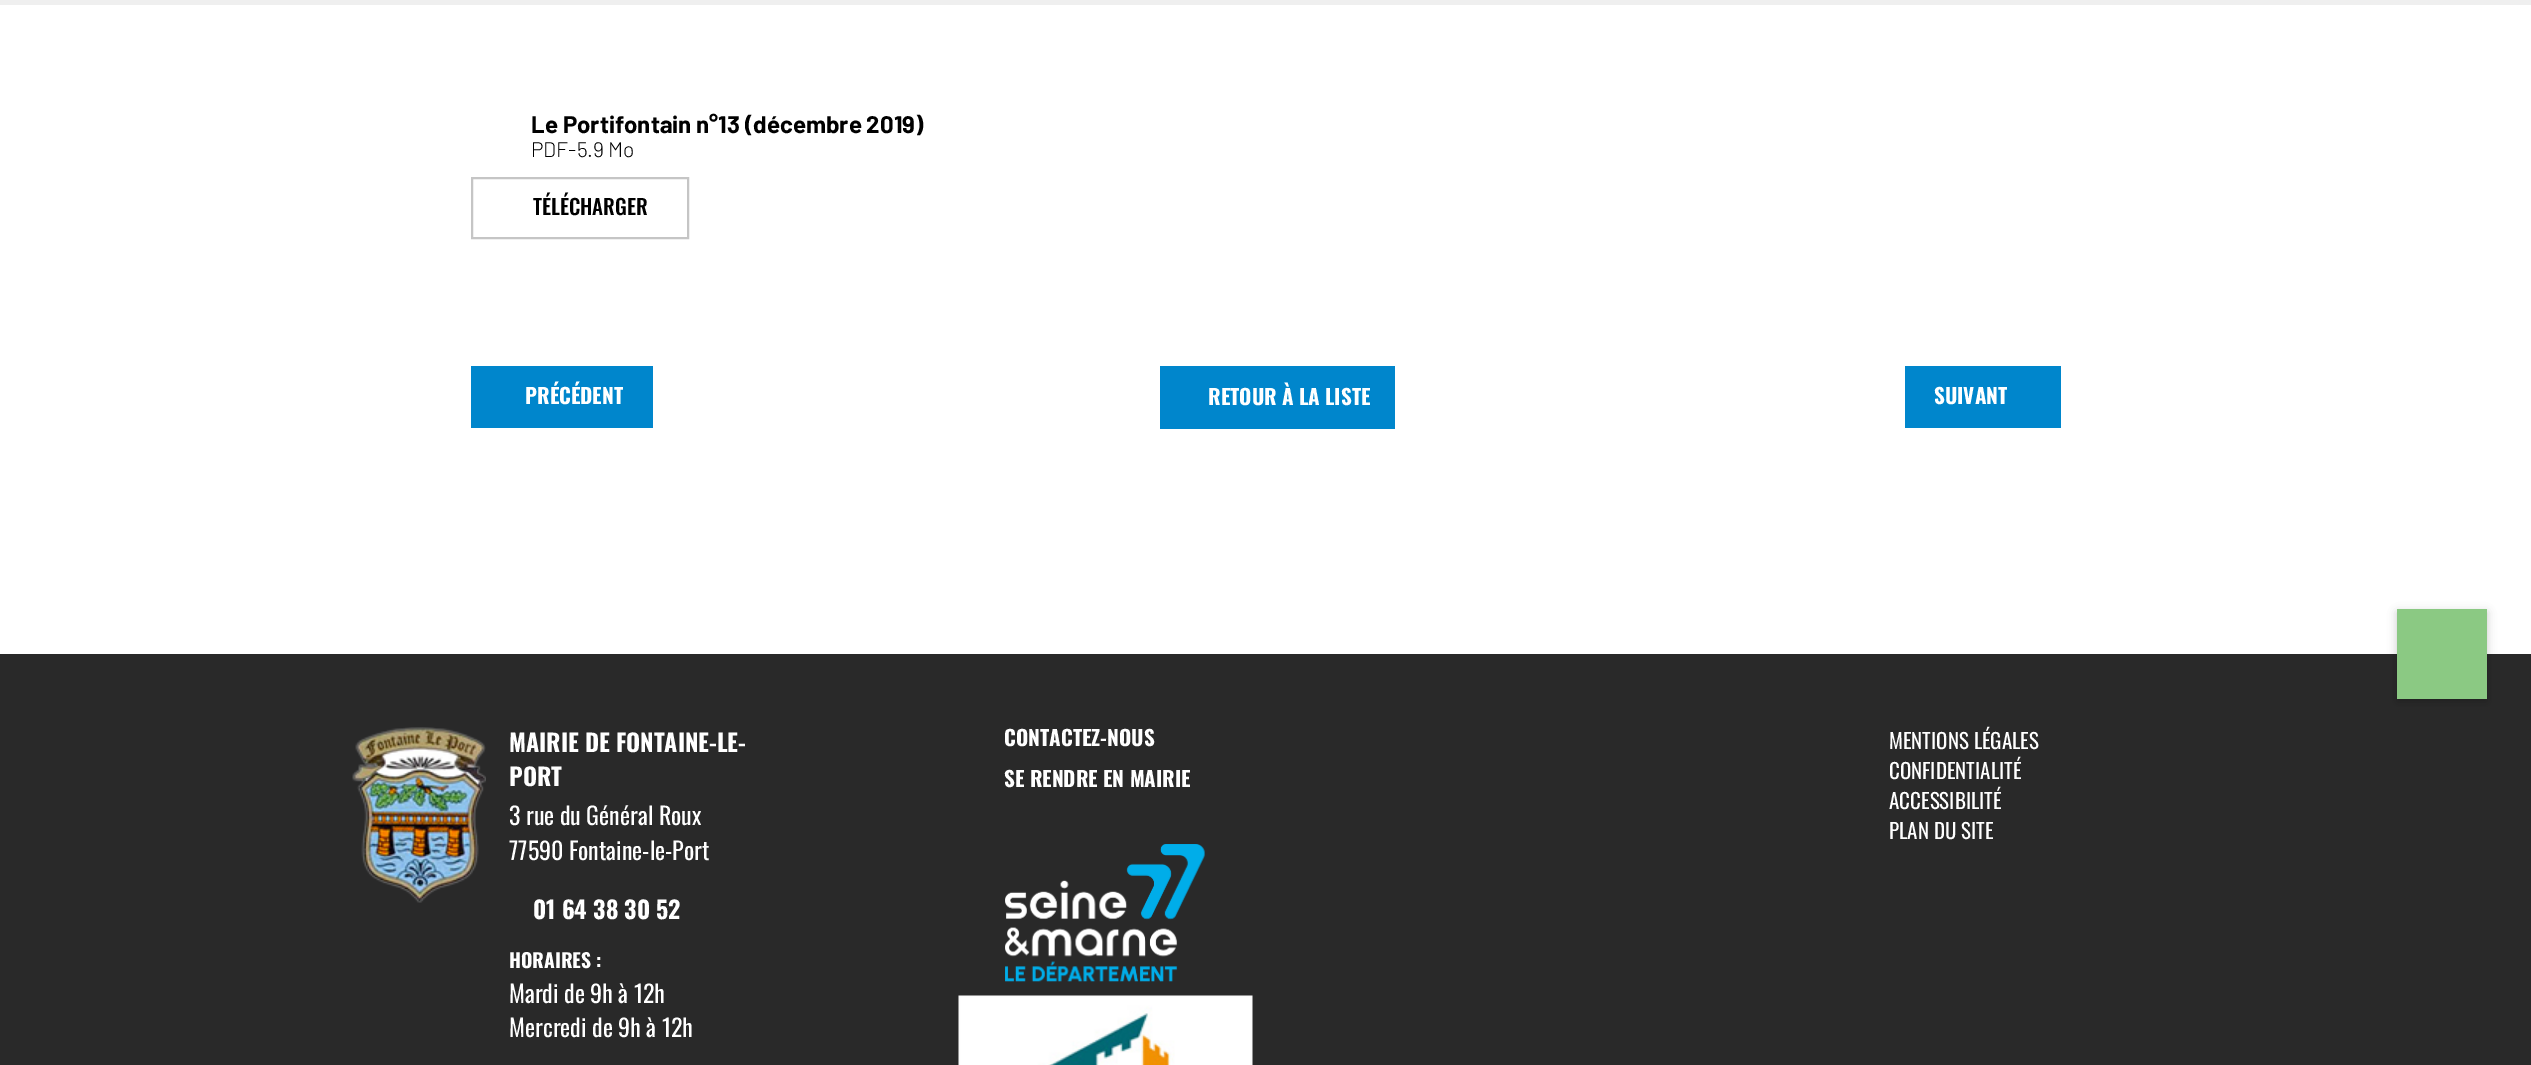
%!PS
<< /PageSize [2531 1065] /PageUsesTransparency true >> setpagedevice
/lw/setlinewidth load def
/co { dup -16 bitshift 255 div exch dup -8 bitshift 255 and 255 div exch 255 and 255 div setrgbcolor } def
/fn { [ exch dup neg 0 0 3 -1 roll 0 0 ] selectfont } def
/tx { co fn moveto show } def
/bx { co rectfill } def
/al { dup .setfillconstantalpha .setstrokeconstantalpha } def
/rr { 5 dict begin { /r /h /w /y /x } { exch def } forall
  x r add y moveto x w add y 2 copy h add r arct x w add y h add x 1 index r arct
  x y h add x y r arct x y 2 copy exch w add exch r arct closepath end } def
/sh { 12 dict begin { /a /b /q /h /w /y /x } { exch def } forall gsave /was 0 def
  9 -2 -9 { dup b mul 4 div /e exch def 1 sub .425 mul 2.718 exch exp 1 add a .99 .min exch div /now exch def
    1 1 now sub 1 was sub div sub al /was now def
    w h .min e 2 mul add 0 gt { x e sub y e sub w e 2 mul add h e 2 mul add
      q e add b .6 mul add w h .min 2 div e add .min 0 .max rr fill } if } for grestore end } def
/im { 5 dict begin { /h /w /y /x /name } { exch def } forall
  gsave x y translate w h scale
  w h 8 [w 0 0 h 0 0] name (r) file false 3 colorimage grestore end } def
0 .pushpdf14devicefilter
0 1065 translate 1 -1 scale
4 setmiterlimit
0 0 2531 1065 16#FFFFFF bx
0 0 2531 5 16#EFEFEF bx
16#C5C5C5 co
2 lw
472 178 216 60 rectstroke
471 366 182 62 16#0086CC bx
1160 366 235 63 16#0086CC bx
1905 366 156 62 16#0086CC bx
0 654 2531 411 16#292929 bx
16#000000 co
2397 612 90 90 0 4.5 .2 sh
2397 609 90 90 16#8BC983 bx
(media/1.raw) 352 727 134 176 im
(media/2.raw) 1005 844 200 138 im
(media/3.raw) 958 995 295 70 im
(Le Portifontain n°13 \(décembre 2019\)) 531 133 /Barlow-Bold 24 16#000000 tx
(PDF-5.9 Mo) 531 157 /Barlow-Light 21 16#000000 tx
(TÉLÉCHARGER) 533 215 /Oswald-Medium 21 16#000000 tx
(PRÉCÉDENT) 525 404 /Oswald-Bold 21 16#FFFFFF tx
(RETOUR À LA LISTE) 1208 405 /Oswald-Bold 21 16#FFFFFF tx
(SUIVANT) 1934 404 /Oswald-Bold 21 16#FFFFFF tx
(MAIRIE DE FONTAINE-LE-) 509 752 /Oswald-Bold 24 16#FFFFFF tx
(PORT) 509 786 /Oswald-Bold 24 16#FFFFFF tx
(3 rue du Général Roux) 509 825 /Oswald-Regular 24 16#FFFFFF tx
(77590 Fontaine-le-Port) 509 860 /Oswald-Regular 24 16#FFFFFF tx
(01 64 38 30 52) 533 919 /Oswald-Bold 24 16#FFFFFF tx
(HORAIRES :) 509 968 /Oswald-Bold 19.5 16#FFFFFF tx
(Mardi de 9h à 12h) 509 1003 /Oswald-Regular 24 16#FFFFFF tx
(Mercredi de 9h à 12h) 509 1037 /Oswald-Regular 24 16#FFFFFF tx
(CONTACTEZ-NOUS) 1004 746 /Oswald-Bold 21 16#FFFFFF tx
(SE RENDRE EN MAIRIE) 1004 787 /Oswald-Bold 21 16#FFFFFF tx
(MENTIONS LÉGALES) 1889 749 /Oswald-Regular 21 16#FFFFFF tx
(CONFIDENTIALITÉ) 1889 779 /Oswald-Regular 21 16#FFFFFF tx
(ACCESSIBILITÉ) 1889 809 /Oswald-Regular 21 16#FFFFFF tx
(PLAN DU SITE) 1889 839 /Oswald-Regular 21 16#FFFFFF tx
.poppdf14devicefilter showpage
